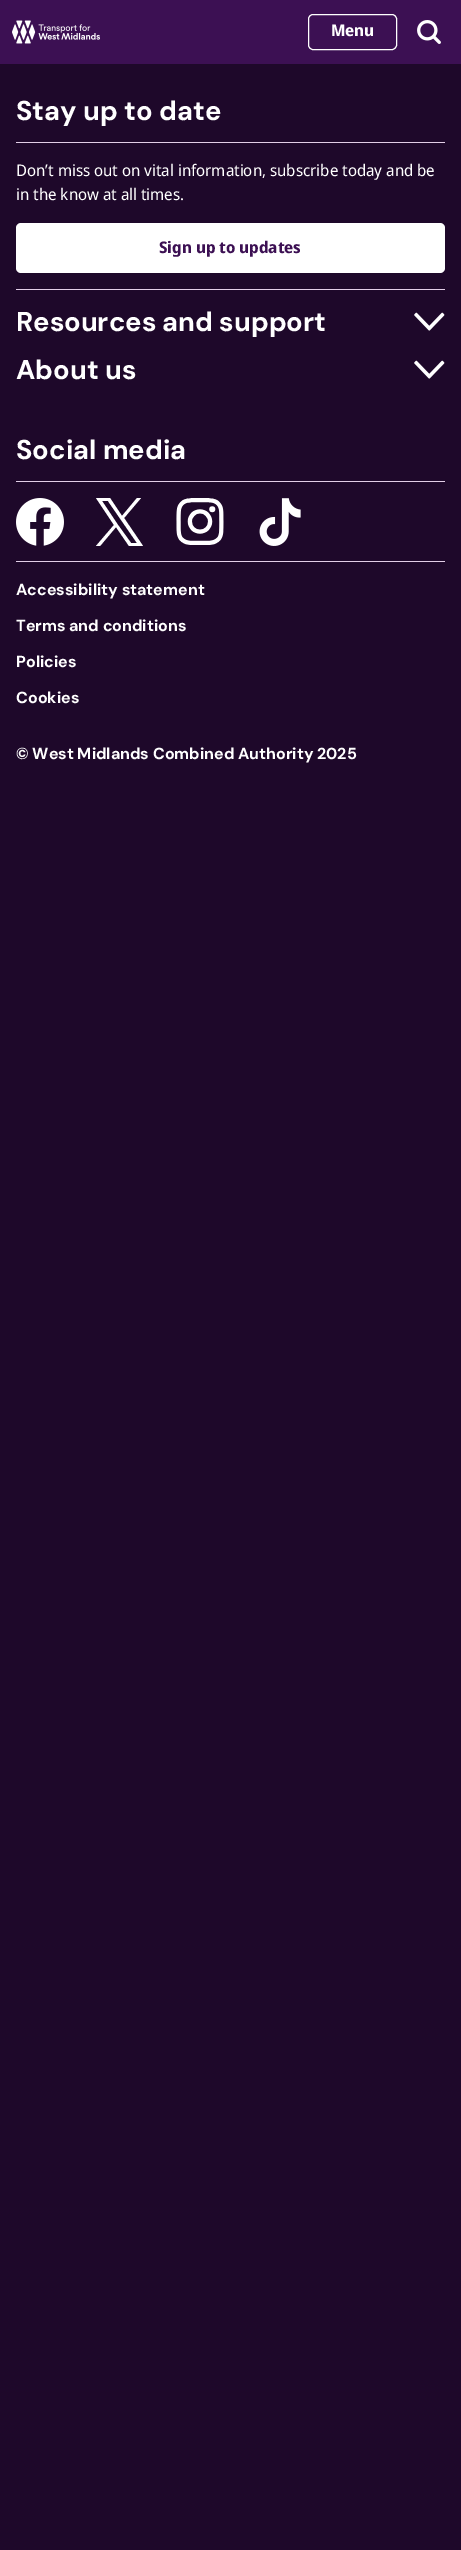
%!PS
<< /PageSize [461 2550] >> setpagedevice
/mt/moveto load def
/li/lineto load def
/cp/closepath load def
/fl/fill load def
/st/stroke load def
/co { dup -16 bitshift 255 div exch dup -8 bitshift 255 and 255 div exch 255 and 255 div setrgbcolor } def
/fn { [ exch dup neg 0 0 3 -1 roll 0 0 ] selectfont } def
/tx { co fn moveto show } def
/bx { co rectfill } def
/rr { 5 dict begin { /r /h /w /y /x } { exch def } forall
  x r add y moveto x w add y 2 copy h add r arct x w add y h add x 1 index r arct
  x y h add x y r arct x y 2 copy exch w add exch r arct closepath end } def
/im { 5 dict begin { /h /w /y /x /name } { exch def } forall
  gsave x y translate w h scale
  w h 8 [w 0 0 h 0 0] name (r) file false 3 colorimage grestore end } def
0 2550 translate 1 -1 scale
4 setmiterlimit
0 0 461 2550 16#FFFFFF bx
0 0 461 64 16#3C1053 bx
(media/1.raw) 12 20 88 24 im
16#FFFFFF co
308.5 14.5 88 35 4.5 rr st
(media/2.raw) 417 20 24 24 im
16#1E082A co
-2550 64 mt -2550 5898 li 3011 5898 li 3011 64 li 461 64 li 461 798 li 0 798 li 0 64 li cp fl
0 64 461 734 16#1E082A bx
16 289 429 1 16#E2CEE7 bx
16 142 429 1 16#E2CEE7 bx
16#FFFFFF co
16 223 429 50 5 rr fl
(media/3.raw) 414 312 31 19 im
(media/3.raw) 414 360 31 19 im
16 481 429 1 16#E2CEE7 bx
(media/4.raw) 16 498 48 48 im
16#FFFFFF co
124 518 mt 141 498 li 137 498 li 122 516 li 110 498 li 96 498 li 114 525 li 96 546 li 100 546 li 116 527 li 129 546 li 143 546 li cp 118 525 mt 102 501 li 108 501 li 137 543 li 131 543 li cp fl
(media/5.raw) 176 498 48 47 im
(media/6.raw) 259 498 42 48 im
16 561 429 1 16#E2CEE7 bx
(Menu) 331 36 /NotoSansDisplay-Bold 16 16#FFFFFF tx
(Stay up to date) 16 120 /DMSans-Bold 27.25 16#FFFFFF tx
(Don’t miss out on vital information, subscribe today and be) 16 176 /NotoSansDisplay-Regular 16 16#FFFFFF tx
(in the know at all times.) 16 200 /NotoSansDisplay-Regular 16 16#FFFFFF tx
(Sign up to updates) 159 253 /NotoSansDisplay-Bold 16 16#3C1053 tx
(Resources and support) 16 331 /DMSans-Bold 27.25 16#FFFFFF tx
(About us) 16 379 /DMSans-Bold 27.25 16#FFFFFF tx
(Social media) 16 459 /DMSans-Bold 27.25 16#FFFFFF tx
(Accessibility statement) 16 595 /DMSans-Bold 16 16#FFFFFF tx
(Terms and conditions) 16 631 /DMSans-Bold 16 16#FFFFFF tx
(Policies) 16 667 /DMSans-Bold 16 16#FFFFFF tx
(Cookies) 16 703 /DMSans-Bold 16 16#FFFFFF tx
(© West Midlands Combined Authority 2025) 16 759 /DMSans-Bold 16 16#FFFFFF tx
showpage
